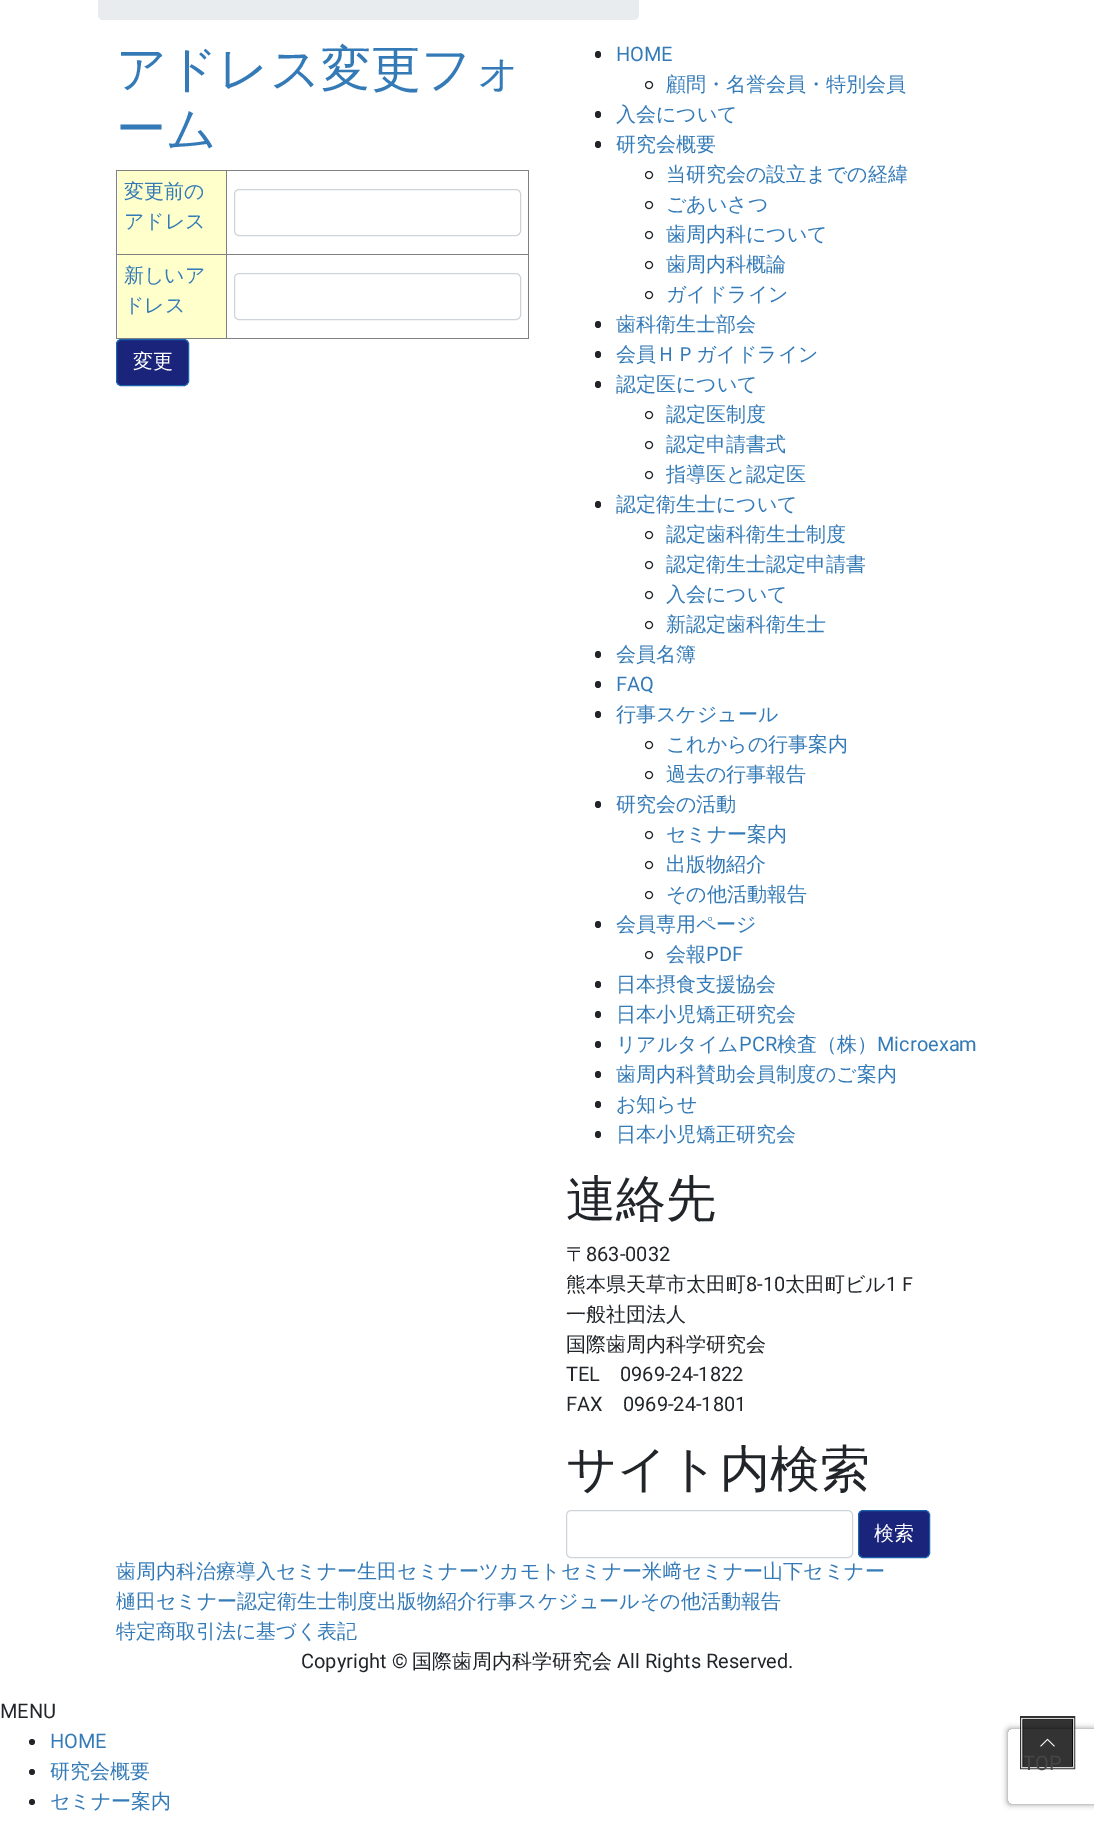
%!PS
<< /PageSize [1094 1821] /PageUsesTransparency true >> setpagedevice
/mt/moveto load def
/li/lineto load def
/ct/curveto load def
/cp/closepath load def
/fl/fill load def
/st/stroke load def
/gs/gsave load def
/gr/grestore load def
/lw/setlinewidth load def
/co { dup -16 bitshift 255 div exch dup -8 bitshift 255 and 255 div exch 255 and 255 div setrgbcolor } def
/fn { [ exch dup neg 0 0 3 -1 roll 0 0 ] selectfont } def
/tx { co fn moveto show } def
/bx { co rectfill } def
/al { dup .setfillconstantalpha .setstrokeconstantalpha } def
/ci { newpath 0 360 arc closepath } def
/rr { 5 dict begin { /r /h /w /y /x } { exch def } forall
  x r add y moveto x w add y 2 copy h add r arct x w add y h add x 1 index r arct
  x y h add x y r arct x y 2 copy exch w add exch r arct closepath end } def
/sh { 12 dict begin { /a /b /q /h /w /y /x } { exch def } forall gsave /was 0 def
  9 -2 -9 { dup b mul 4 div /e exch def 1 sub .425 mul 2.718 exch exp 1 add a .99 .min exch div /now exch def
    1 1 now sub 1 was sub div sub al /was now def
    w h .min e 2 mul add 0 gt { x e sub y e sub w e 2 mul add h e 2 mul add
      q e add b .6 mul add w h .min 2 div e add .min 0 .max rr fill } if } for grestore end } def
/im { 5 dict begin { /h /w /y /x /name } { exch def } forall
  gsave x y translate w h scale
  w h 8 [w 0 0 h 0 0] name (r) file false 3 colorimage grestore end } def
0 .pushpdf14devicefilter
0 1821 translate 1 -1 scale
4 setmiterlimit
0 0 1094 1821 16#FFFFFF bx
16#E9ECEF co
98 -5 541 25 5 rr fl
116 170 413 1 16#808080 bx
528 170 1 169 16#808080 bx
116 338 413 1 16#808080 bx
116 170 1 169 16#808080 bx
118 171 108 83 16#FFFFCC bx
226 254 303 1 16#808080 bx
226 254 1 85 16#808080 bx
116 254 112 1 16#808080 bx
226 170 1 85 16#808080 bx
16#CED4DA co
234.5 189.5 286 46 4.5 rr st
118 255 108 83 16#FFFFCC bx
16#CED4DA co
234.5 273.5 286 46 4.5 rr st
16#1A247B co
116.5 339.5 72 46 4.5 rr gs fl gr
16#1A63AD co
st
16#212529 co
595 51 6 7 3 rr fl
649 85 3.5 ci st
595 111 6 7 3 rr fl
595 141 6 7 3 rr fl
649 175 3.5 ci st
649 205 3.5 ci st
649 235 3.5 ci st
649 265 3.5 ci st
649 295 3.5 ci st
595 321 6 7 3 rr fl
595 351 6 7 3 rr fl
595 381 6 7 3 rr fl
649 415 3.5 ci st
649 445 3.5 ci st
649 475 3.5 ci st
595 501 6 7 3 rr fl
649 535 3.5 ci st
649 565 3.5 ci st
649 595 3.5 ci st
649 625 3.5 ci st
595 651 6 7 3 rr fl
595 681 6 7 3 rr fl
595 711 6 7 3 rr fl
649 745 3.5 ci st
649 775 3.5 ci st
595 801 6 7 3 rr fl
649 835 3.5 ci st
649 865 3.5 ci st
649 895 3.5 ci st
595 921 6 7 3 rr fl
649 955 3.5 ci st
595 981 6 7 3 rr fl
595 1011 6 7 3 rr fl
595 1041 6 7 3 rr fl
595 1071 6 7 3 rr fl
595 1101 6 7 3 rr fl
595 1131 6 7 3 rr fl
16#CED4DA co
566.5 1510.5 286 47 4.5 rr st
16#1A247B co
858.5 1510.5 71 47 4.5 rr gs fl gr
16#1A63AD co
st
16#212529 co
32 1742 3 ci fl
32 1772 3 ci fl
32 1802 3 ci fl
gs
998 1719 mt 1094 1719 li 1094 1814 li 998 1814 li cp 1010.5 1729 mt 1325.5 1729 li 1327 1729 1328 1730 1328 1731.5 ct 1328 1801.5 li 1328 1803 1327 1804 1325.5 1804 ct 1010.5 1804 li 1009 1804 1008 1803 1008 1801.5 ct 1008 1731.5 li 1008 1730 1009 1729 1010.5 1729 ct cp eoclip newpath
16#808080 co
1008 1729 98 75 2.5 3 1 sh
gr
0.8 al
16#000000 co
3 lw
1021.5 1717.5 52 50 rectstroke
16#FFFFFF co
1 lw
1021.5 1718.5 52 49 rectstroke
1023 1719 50 47 16#000000 bx
1 al
(media/1.raw) 1040 1738 15 9 im
(アドレス変更フォ) 116 86 /WenQuanYiZenHei-Medium 50 16#337AB7 tx
(ーム) 116 146 /WenQuanYiZenHei-Medium 50 16#337AB7 tx
(変更前の) 124 198 /WenQuanYiZenHei-Medium 20 16#337AB7 tx
(アドレス) 124 228 /WenQuanYiZenHei-Medium 20 16#337AB7 tx
(新しいア) 124 282 /WenQuanYiZenHei-Medium 20 16#337AB7 tx
(ドレス) 124 312 /WenQuanYiZenHei-Medium 20 16#337AB7 tx
(変更) 133 368 /WenQuanYiZenHei-Medium 20 16#FFFFFF tx
(HOME) 616 61 /Roboto-Regular 20 16#337AB7 tx
(顧問・名誉会員・特別会員) 666 91 /WenQuanYiZenHei-Medium 20 16#337AB7 tx
(入会について) 616 121 /WenQuanYiZenHei-Medium 20 16#337AB7 tx
(研究会概要) 616 151 /WenQuanYiZenHei-Medium 20 16#337AB7 tx
(当研究会の設立までの経緯) 666 181 /WenQuanYiZenHei-Medium 20 16#337AB7 tx
(ごあいさつ) 666 211 /WenQuanYiZenHei-Medium 20 16#337AB7 tx
(歯周内科について) 666 241 /WenQuanYiZenHei-Medium 20 16#337AB7 tx
(歯周内科概論) 666 271 /WenQuanYiZenHei-Medium 20 16#337AB7 tx
(ガイドライン) 666 301 /WenQuanYiZenHei-Medium 20 16#337AB7 tx
(歯科衛生士部会) 616 331 /WenQuanYiZenHei-Medium 20 16#337AB7 tx
(会員ＨＰガイドライン) 616 361 /WenQuanYiZenHei-Medium 20 16#337AB7 tx
(認定医について) 616 391 /WenQuanYiZenHei-Medium 20 16#337AB7 tx
(認定医制度) 666 421 /WenQuanYiZenHei-Medium 20 16#337AB7 tx
(認定申請書式) 666 451 /WenQuanYiZenHei-Medium 20 16#337AB7 tx
(指導医と認定医) 666 481 /WenQuanYiZenHei-Medium 20 16#337AB7 tx
(認定衛生士について) 616 511 /WenQuanYiZenHei-Medium 20 16#337AB7 tx
(認定歯科衛生士制度) 666 541 /WenQuanYiZenHei-Medium 20 16#337AB7 tx
(認定衛生士認定申請書) 666 571 /WenQuanYiZenHei-Medium 20 16#337AB7 tx
(入会について) 666 601 /WenQuanYiZenHei-Medium 20 16#337AB7 tx
(新認定歯科衛生士) 666 631 /WenQuanYiZenHei-Medium 20 16#337AB7 tx
(会員名簿) 616 661 /WenQuanYiZenHei-Medium 20 16#337AB7 tx
(FAQ) 616 691 /Roboto-Regular 20 16#337AB7 tx
(行事スケジュール) 616 721 /WenQuanYiZenHei-Medium 20 16#337AB7 tx
(これからの行事案内) 666 751 /WenQuanYiZenHei-Medium 20 16#337AB7 tx
(過去の行事報告) 666 781 /WenQuanYiZenHei-Medium 20 16#337AB7 tx
(研究会の活動) 616 811 /WenQuanYiZenHei-Medium 20 16#337AB7 tx
(セミナー案内) 666 841 /WenQuanYiZenHei-Medium 20 16#337AB7 tx
(出版物紹介) 666 871 /WenQuanYiZenHei-Medium 20 16#337AB7 tx
(その他活動報告) 666 901 /WenQuanYiZenHei-Medium 20 16#337AB7 tx
(会員専用ページ) 616 931 /WenQuanYiZenHei-Medium 20 16#337AB7 tx
(会報) 666 961 /WenQuanYiZenHei-Medium 20 16#337AB7 tx
(PDF) 706 961 /Roboto-Regular 20 16#337AB7 tx
(日本摂食支援協会) 616 991 /WenQuanYiZenHei-Medium 20 16#337AB7 tx
(日本小児矯正研究会) 616 1021 /WenQuanYiZenHei-Medium 20 16#337AB7 tx
(リアルタイム) 616 1051 /WenQuanYiZenHei-Medium 20 16#337AB7 tx
(PCR) 739 1051 /Roboto-Regular 20 16#337AB7 tx
(検査（株）) 777 1051 /WenQuanYiZenHei-Medium 20 16#337AB7 tx
(Microexam) 877 1051 /Roboto-Regular 20 16#337AB7 tx
(歯周内科賛助会員制度のご案内) 616 1081 /WenQuanYiZenHei-Medium 20 16#337AB7 tx
(お知らせ) 616 1111 /WenQuanYiZenHei-Medium 20 16#337AB7 tx
(日本小児矯正研究会) 616 1141 /WenQuanYiZenHei-Medium 20 16#337AB7 tx
(連絡先) 566 1216 /WenQuanYiZenHei-Medium 50 16#212529 tx
(〒) 566 1261 /WenQuanYiZenHei-Medium 20 16#212529 tx
(863-0032) 586 1261 /Roboto-Regular 20 16#212529 tx
(熊本県天草市太田町) 566 1291 /WenQuanYiZenHei-Medium 20 16#212529 tx
(8-10) 746 1291 /Roboto-Regular 20 16#212529 tx
(太田町ビル) 785 1291 /WenQuanYiZenHei-Medium 20 16#212529 tx
(1) 886 1291 /Roboto-Regular 20 16#212529 tx
(Ｆ) 898 1291 /WenQuanYiZenHei-Medium 20 16#212529 tx
(一般社団法人) 566 1321 /WenQuanYiZenHei-Medium 20 16#212529 tx
(国際歯周内科学研究会) 566 1351 /WenQuanYiZenHei-Medium 20 16#212529 tx
(TEL) 566 1381 /Roboto-Regular 20 16#212529 tx
(0969-24-1822) 620 1381 /Roboto-Regular 20 16#212529 tx
(FAX) 566 1411 /Roboto-Regular 20 16#212529 tx
(0969-24-1801) 623 1411 /Roboto-Regular 20 16#212529 tx
(サイト内検索) 566 1486 /WenQuanYiZenHei-Medium 50 16#212529 tx
(検索) 874 1540 /WenQuanYiZenHei-Medium 20 16#FFFFFF tx
(歯周内科治療導入セミナー生田セミナーツカモトセミナー米) 116 1578 /WenQuanYiZenHei-Medium 20 16#337AB7 tx
(﨑) 662 1578 /IPAPGothic-Regular 20 16#337AB7 tx
(セミナー山下セミナー) 682 1578 /WenQuanYiZenHei-Medium 20 16#337AB7 tx
(樋田セミナー認定衛生士制度出版物紹介行事スケジュールその他活動報告) 116 1608 /WenQuanYiZenHei-Medium 20 16#337AB7 tx
(特定商取引法に基づく表記) 116 1638 /WenQuanYiZenHei-Medium 20 16#337AB7 tx
(Copyright ©) 301 1668 /Roboto-Regular 20 16#212529 tx
(国際歯周内科学研究会) 412 1668 /WenQuanYiZenHei-Medium 20 16#212529 tx
(All Rights Reserved.) 617 1668 /Roboto-Regular 20 16#212529 tx
(MENU) 0 1718 /Roboto-Regular 20 16#212529 tx
(HOME) 50 1748 /Roboto-Regular 20 16#337AB7 tx
(研究会概要) 50 1778 /WenQuanYiZenHei-Medium 20 16#337AB7 tx
(セミナー案内) 50 1808 /WenQuanYiZenHei-Medium 20 16#337AB7 tx
(TOP) 1023 1770 /Roboto-Regular 20 16#464646 tx
.poppdf14devicefilter showpage
